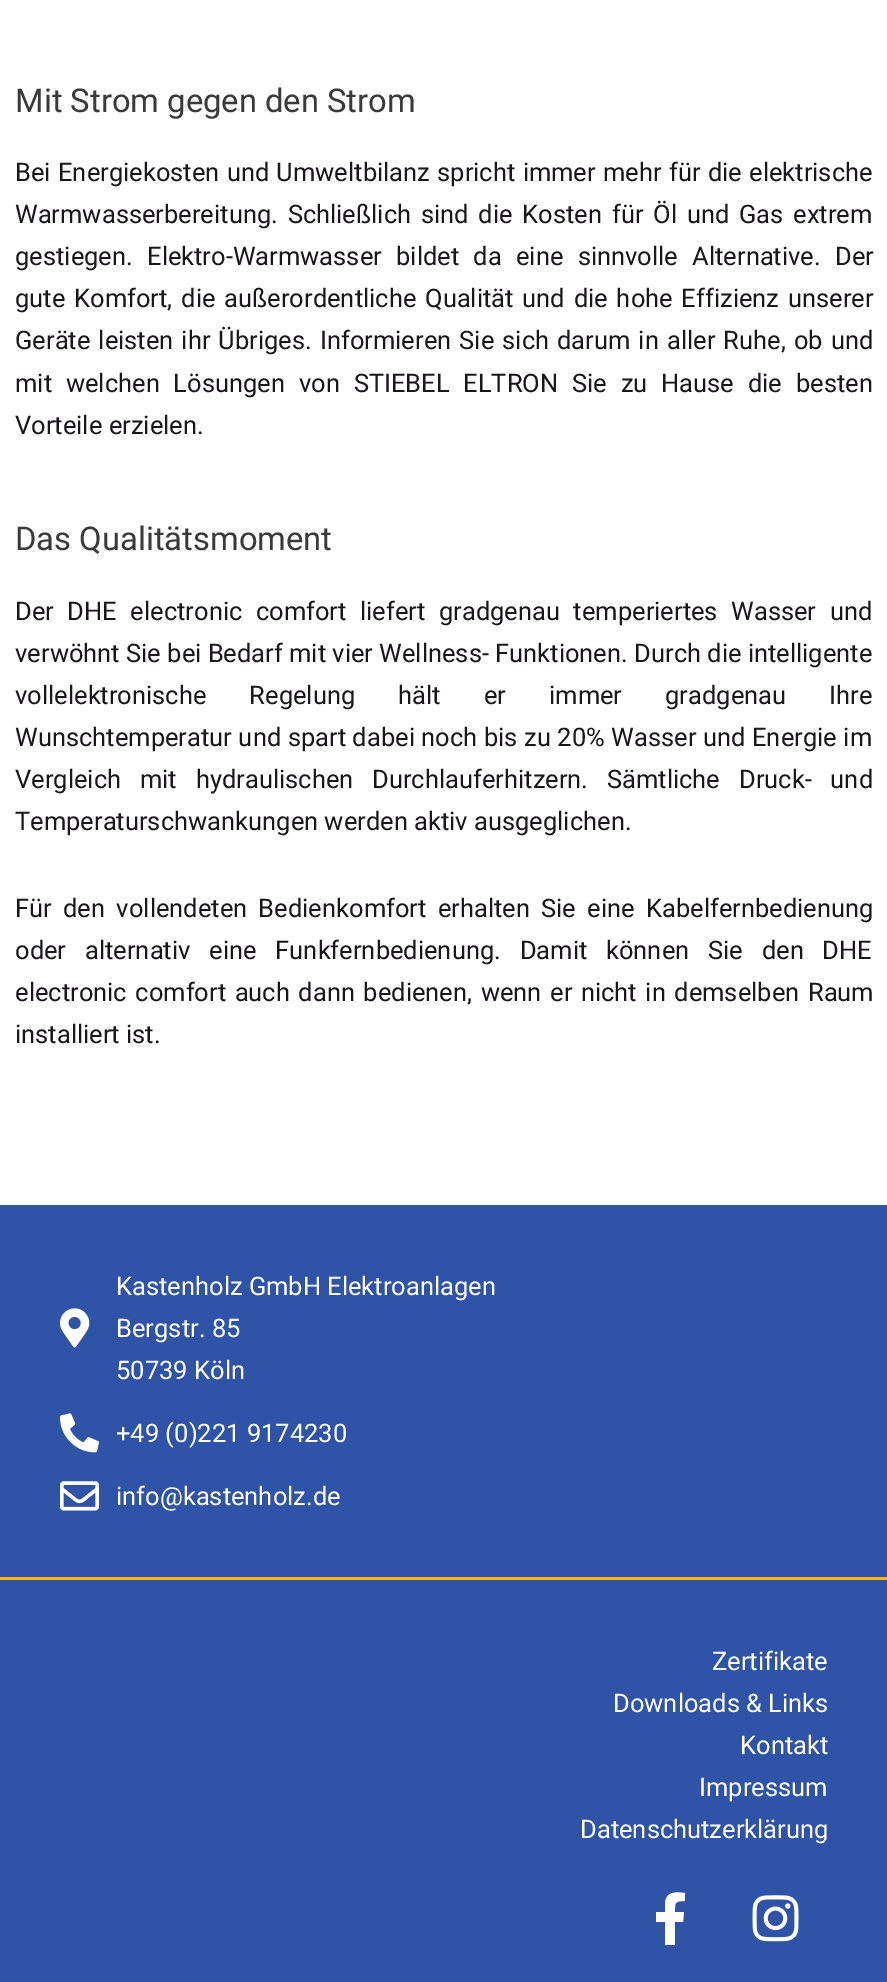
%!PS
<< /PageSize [887 1982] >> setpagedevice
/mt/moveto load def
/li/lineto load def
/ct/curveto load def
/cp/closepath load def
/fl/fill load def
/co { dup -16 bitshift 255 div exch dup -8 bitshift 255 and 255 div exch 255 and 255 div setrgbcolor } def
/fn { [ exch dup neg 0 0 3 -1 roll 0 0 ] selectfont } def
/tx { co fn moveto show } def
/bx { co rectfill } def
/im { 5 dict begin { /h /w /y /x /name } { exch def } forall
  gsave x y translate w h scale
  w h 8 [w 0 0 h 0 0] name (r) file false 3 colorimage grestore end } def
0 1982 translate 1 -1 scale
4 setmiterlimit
0 0 887 1982 16#FFFFFF bx
0 1205 887 777 16#2F53A7 bx
0 1577 887 3 16#FEB800 bx
(media/1.raw) 60 1308 30 40 im
(media/2.raw) 60 1413 39 40 im
(media/3.raw) 60 1481 39 30 im
16#FFFFFF co
683 1922 mt 675 1922 li 675 1945 li 665 1945 li 665 1922 li 656 1922 li 656 1912 li 665 1912 li 665 1902 li 667 1891 676 1892 685 1893 ct 685 1901 li 674 1901 675 1903 675 1912 ct 684 1912 li cp fl
(media/4.raw) 752 1895 47 47 im
(Mit Strom gegen den Strom) 15 112 /Roboto-Regular 32.75 16#3A3A3A tx
/Roboto-Regular 25.5 fn
16#1A171B co
15 181 mt 1 0 32 (Bei Energiekosten und Umweltbilanz spricht immer mehr für die elektrische) widthshow
15 223 mt 3.5 0 32 (Warmwasserbereitung. Schließlich sind die Kosten für Öl und Gas extrem) widthshow
15 265 mt 8 0 32 (gestiegen. Elektro-Warmwasser bildet da eine sinnvolle Alternative. Der) widthshow
15 307 mt 2.5 0 32 (gute Komfort, die außerordentliche Qualität und die hohe Effizienz unserer) widthshow
15 349 mt 1.75 0 32 (Geräte leisten ihr Übriges. Informieren Sie sich darum in aller Ruhe, ob und) widthshow
15 392 mt 7.5 0 32 (mit welchen Lösungen von STIEBEL ELTRON Sie zu Hause die besten) widthshow
(Vorteile erzielen.) 15 434 /Roboto-Regular 25.5 16#1A171B tx
(Das Qualitätsmoment) 15 550 /Roboto-Regular 32.75 16#3A3A3A tx
/Roboto-Regular 25.5 fn
16#1A171B co
15 620 mt 7.25 0 32 (Der DHE electronic comfort liefert gradgenau temperiertes Wasser und) widthshow
(verwöhnt Sie bei Bedarf mit vier Wellness- Funktionen. Durch die intelligente) 15 662 /Roboto-Regular 25.5 16#1A171B tx
15 704 mt 36.75 0 32 (vollelektronische Regelung hält er immer gradgenau Ihre) widthshow
15 746 mt .25 0 32 (Wunschtemperatur und spart dabei noch bis zu 20% Wasser und Energie im) widthshow
15 788 mt 12.5 0 32 (Vergleich mit hydraulischen Durchlauferhitzern. Sämtliche Druck- und) widthshow
(Temperaturschwankungen werden aktiv ausgeglichen.) 15 830 /Roboto-Regular 25.5 16#1A171B tx
15 917 mt 5 0 32 (Für den vollendeten Bedienkomfort erhalten Sie eine Kabelfernbedienung) widthshow
15 959 mt 12.5 0 32 (oder alternativ eine Funkfernbedienung. Damit können Sie den DHE) widthshow
15 1001 mt 2.25 0 32 (electronic comfort auch dann bedienen, wenn er nicht in demselben Raum) widthshow
(installiert ist.) 15 1043 /Roboto-Regular 25.5 16#1A171B tx
(Kastenholz GmbH Elektroanlagen) 116 1295 /Roboto-Regular 25.5 16#FFFFFF tx
(Bergstr. 85) 116 1337 /Roboto-Regular 25.5 16#FFFFFF tx
(50739 Köln) 116 1379 /Roboto-Regular 25.5 16#FFFFFF tx
(+49 \(0\)221 9174230) 116 1442 /Roboto-Regular 25.5 16#FFFFFF tx
(info@kastenholz.de) 116 1505 /Roboto-Regular 25.5 16#FFFFFF tx
(Zertifikate) 712 1670 /Roboto-Regular 25.5 16#FFFFFF tx
(Downloads & Links) 613 1712 /Roboto-Regular 25.5 16#FFFFFF tx
(Kontakt) 740 1754 /Roboto-Regular 25.5 16#FFFFFF tx
(Impressum) 699 1796 /Roboto-Regular 25.5 16#FFFFFF tx
(Datenschutzerklärung) 580 1838 /Roboto-Regular 25.5 16#FFFFFF tx
showpage
